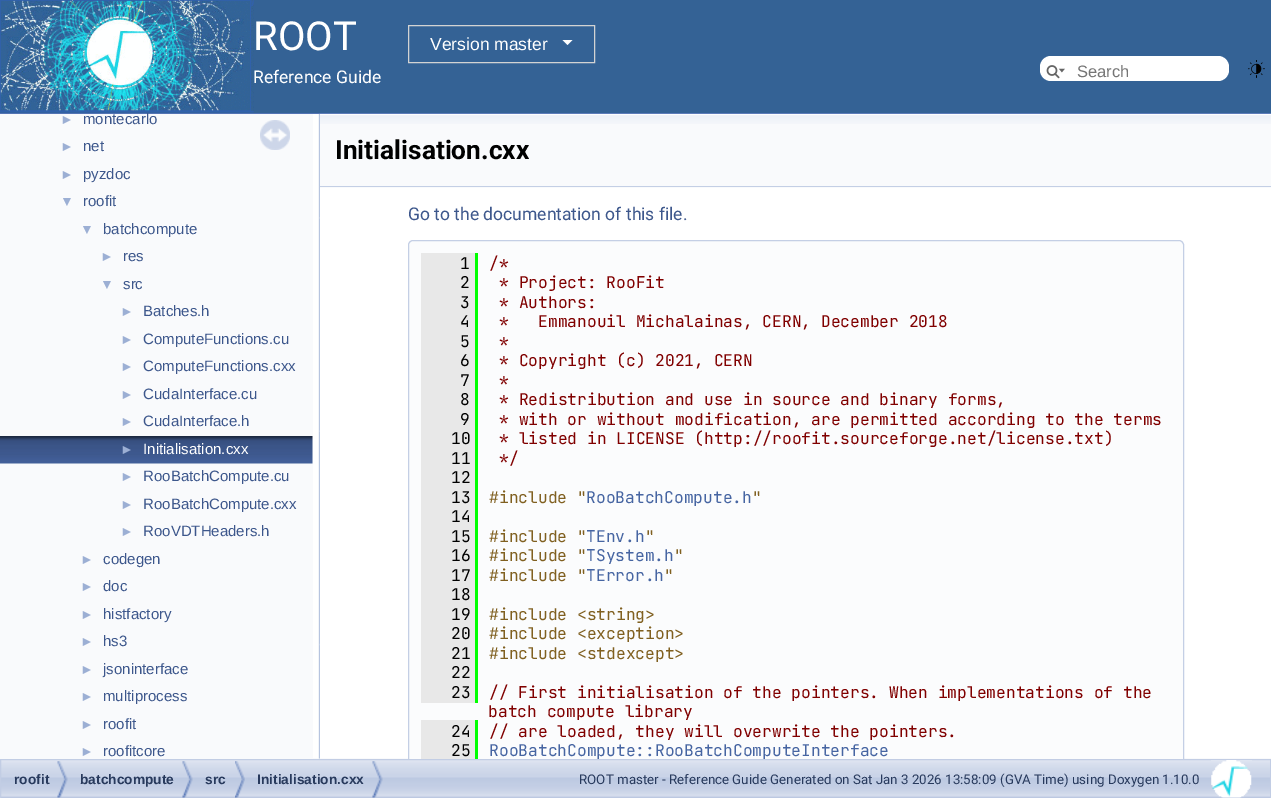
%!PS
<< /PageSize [1271 798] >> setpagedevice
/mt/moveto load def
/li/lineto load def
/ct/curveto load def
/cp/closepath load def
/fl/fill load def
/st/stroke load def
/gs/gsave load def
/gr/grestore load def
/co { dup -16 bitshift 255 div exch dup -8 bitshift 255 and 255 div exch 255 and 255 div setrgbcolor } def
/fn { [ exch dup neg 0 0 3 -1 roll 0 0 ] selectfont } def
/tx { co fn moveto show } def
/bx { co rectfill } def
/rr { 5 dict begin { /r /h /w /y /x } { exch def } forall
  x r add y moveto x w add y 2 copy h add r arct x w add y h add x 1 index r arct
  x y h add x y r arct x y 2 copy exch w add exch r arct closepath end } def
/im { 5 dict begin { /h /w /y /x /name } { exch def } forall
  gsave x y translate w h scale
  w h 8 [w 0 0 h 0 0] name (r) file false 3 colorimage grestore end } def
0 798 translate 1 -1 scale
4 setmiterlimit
0 0 1271 798 16#FFFFFF bx
0 113 1271 1 16#5373B4 bx
0 0 1271 113 16#346295 bx
(media/1.raw) 0 0 254 113 im
16#D3D3D3 co
408.5 25.5 186 37 rectstroke
16#FFFFFF co
562.5 40 mt 572.5 40 li 567.5 45 li cp fl
1040 56 189 25 11 rr fl
(media/2.raw) 1046 65 19 14 im
(media/3.raw) 1248 60 17 18 im
(media/8.raw) 1 758 1270 40 im
0 114 313 645 16#F9FAFC bx
(media/4.raw) 0 436 313 28 im
(media/5.raw) 260 120 30 30 im
(media/6.raw) 318 113 2 646 im
320 124 951 64 16#F9FAFC bx
(media/7.raw) 320 113 951 11 im
320 186 951 1 16#C4CFE5 bx
16#FBFCFD co
413 240 mt 1179 240 li 1182 240 1184 242 1184 245 ct 1184 759 li 408 759 li 408 245 li 408 242 410 240 413 240 ct cp fl
16#C2CDE4 co
.5 759.5 1270 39 rectstroke
(media/9.raw) 57 761 11 37 im
(media/10.raw) 182 761 11 37 im
(media/11.raw) 235 761 10 37 im
(media/9.raw) 372 761 11 37 im
(media/12.raw) 1211 760 41 38 im
(ROOT) 253 50 /Roboto-Regular 40 16#FFFFFF tx
(Version master) 430 50 /LiberationSans-Regular 17.5 16#FFFFFF tx
(Reference Guide) 253 83 /Roboto-Regular 17.5 16#FFFFFF tx
(Search) 1077 77 /LiberationSans-Regular 16.5 16#757575 tx
(►) 60 124 /LiberationSans-Regular 14 16#9CAFD4 tx
(montecarlo) 83 124 /LiberationSans-Regular 15 16#3D578C tx
(►) 60 151 /LiberationSans-Regular 14 16#9CAFD4 tx
(net) 83 151 /LiberationSans-Regular 15 16#3D578C tx
(►) 60 179 /LiberationSans-Regular 14 16#9CAFD4 tx
(pyzdoc) 83 179 /LiberationSans-Regular 15 16#3D578C tx
(▼) 60 206 /LiberationSans-Regular 14 16#9CAFD4 tx
(roofit) 83 206 /LiberationSans-Regular 15 16#3D578C tx
(▼) 80 234 /LiberationSans-Regular 14 16#9CAFD4 tx
(batchcompute) 103 234 /LiberationSans-Regular 15 16#3D578C tx
(►) 100 261 /LiberationSans-Regular 14 16#9CAFD4 tx
(res) 123 261 /LiberationSans-Regular 15 16#3D578C tx
(▼) 100 289 /LiberationSans-Regular 14 16#9CAFD4 tx
(src) 123 289 /LiberationSans-Regular 15 16#3D578C tx
(►) 120 316 /LiberationSans-Regular 14 16#9CAFD4 tx
(Batches.h) 143 316 /LiberationSans-Regular 15 16#3D578C tx
(►) 120 344 /LiberationSans-Regular 14 16#9CAFD4 tx
(ComputeFunctions.cu) 143 344 /LiberationSans-Regular 15 16#3D578C tx
(►) 120 371 /LiberationSans-Regular 14 16#9CAFD4 tx
(ComputeFunctions.cxx) 143 371 /LiberationSans-Regular 15 16#3D578C tx
(►) 120 399 /LiberationSans-Regular 14 16#9CAFD4 tx
(CudaInterface.cu) 143 399 /LiberationSans-Regular 15 16#3D578C tx
(►) 120 426 /LiberationSans-Regular 14 16#9CAFD4 tx
(CudaInterface.h) 143 426 /LiberationSans-Regular 15 16#3D578C tx
(►) 120 454 /LiberationSans-Regular 14 16#9CAFD4 tx
(Initialisation.cxx) 143 454 /LiberationSans-Regular 15 16#FFFFFF tx
(►) 120 481 /LiberationSans-Regular 14 16#9CAFD4 tx
(RooBatchCompute.cu) 143 481 /LiberationSans-Regular 15 16#3D578C tx
(►) 120 509 /LiberationSans-Regular 14 16#9CAFD4 tx
(RooBatchCompute.cxx) 143 509 /LiberationSans-Regular 15 16#3D578C tx
(►) 120 536 /LiberationSans-Regular 14 16#9CAFD4 tx
(RooVDTHeaders.h) 143 536 /LiberationSans-Regular 15 16#3D578C tx
(►) 80 564 /LiberationSans-Regular 14 16#9CAFD4 tx
(codegen) 103 564 /LiberationSans-Regular 15 16#3D578C tx
(►) 80 591 /LiberationSans-Regular 14 16#9CAFD4 tx
(doc) 103 591 /LiberationSans-Regular 15 16#3D578C tx
(►) 80 619 /LiberationSans-Regular 14 16#9CAFD4 tx
(histfactory) 103 619 /LiberationSans-Regular 15 16#3D578C tx
(►) 80 646 /LiberationSans-Regular 14 16#9CAFD4 tx
(hs3) 103 646 /LiberationSans-Regular 15 16#3D578C tx
(►) 80 674 /LiberationSans-Regular 14 16#9CAFD4 tx
(jsoninterface) 103 674 /LiberationSans-Regular 15 16#3D578C tx
(►) 80 701 /LiberationSans-Regular 14 16#9CAFD4 tx
(multiprocess) 103 701 /LiberationSans-Regular 15 16#3D578C tx
(►) 80 729 /LiberationSans-Regular 14 16#9CAFD4 tx
(roofit) 103 729 /LiberationSans-Regular 15 16#3D578C tx
(►) 80 756 /LiberationSans-Regular 14 16#9CAFD4 tx
(roofitcore) 103 756 /LiberationSans-Regular 15 16#3D578C tx
(Initialisation.cxx) 335 159 /Roboto-Bold 26.25 16#000000 tx
(Go to the documentation of this file.) 408 220 /Roboto-Regular 17.5 16#3D578C tx
(roofit) 14 784 /LiberationSans-Bold 13.75 16#283A5D tx
(batchcompute) 80 784 /LiberationSans-Bold 13.75 16#283A5D tx
(src) 205 784 /LiberationSans-Bold 13.75 16#283A5D tx
(Initialisation.cxx) 257 784 /LiberationSans-Bold 13.75 16#283A5D tx
(ROOT master - Reference Guide Generated on Sat Jan 3 2026 13:58:09 \(GVA Time\) using Doxygen 1.10.0) 579 784 /Roboto-Regular 13.35 16#283A5D tx
gs
320 114 951 645 rectclip
16#C4CFE5 co
408.5 240.5 775 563 4.5 rr st
gr
(RooBatchCompute::RooBatchComputeInterface) 489 756 /JetBrainsMono-Regular 16.25 16#4665A2 tx
421 720 54 39 16#E8E8E8 bx
(25) 451 756 /JetBrainsMono-Regular 16.25 16#000000 tx
(// are loaded, they will overwrite the pointers.) 489 737 /JetBrainsMono-Regular 16.25 16#800000 tx
(24) 451 737 /JetBrainsMono-Regular 16.25 16#000000 tx
475 720 3 39 16#00FF00 bx
(batch compute library) 488 717 /JetBrainsMono-Regular 16.25 16#800000 tx
(// First initialisation of the pointers. When implementations of the) 489 698 /JetBrainsMono-Regular 16.25 16#800000 tx
421 253 54 450 16#E8E8E8 bx
(23) 451 698 /JetBrainsMono-Regular 16.25 16#000000 tx
(22) 451 678 /JetBrainsMono-Regular 16.25 16#000000 tx
(#include <stdexcept>) 489 659 /JetBrainsMono-Regular 16.25 16#806020 tx
(21) 451 659 /JetBrainsMono-Regular 16.25 16#000000 tx
(#include <exception>) 489 639 /JetBrainsMono-Regular 16.25 16#806020 tx
(20) 451 639 /JetBrainsMono-Regular 16.25 16#000000 tx
(#include <string>) 489 620 /JetBrainsMono-Regular 16.25 16#806020 tx
(19) 451 620 /JetBrainsMono-Regular 16.25 16#000000 tx
(18) 451 600 /JetBrainsMono-Regular 16.25 16#000000 tx
(") 664 581 /JetBrainsMono-Regular 16.25 16#806020 tx
(TError.h) 586 581 /JetBrainsMono-Regular 16.25 16#4665A2 tx
(#include ") 489 581 /JetBrainsMono-Regular 16.25 16#806020 tx
(17) 451 581 /JetBrainsMono-Regular 16.25 16#000000 tx
(") 674 561 /JetBrainsMono-Regular 16.25 16#806020 tx
(TSystem.h) 586 561 /JetBrainsMono-Regular 16.25 16#4665A2 tx
(#include ") 489 561 /JetBrainsMono-Regular 16.25 16#806020 tx
(16) 451 561 /JetBrainsMono-Regular 16.25 16#000000 tx
(") 645 542 /JetBrainsMono-Regular 16.25 16#806020 tx
(TEnv.h) 586 542 /JetBrainsMono-Regular 16.25 16#4665A2 tx
(#include ") 489 542 /JetBrainsMono-Regular 16.25 16#806020 tx
(15) 451 542 /JetBrainsMono-Regular 16.25 16#000000 tx
(14) 451 522 /JetBrainsMono-Regular 16.25 16#000000 tx
(") 752 503 /JetBrainsMono-Regular 16.25 16#806020 tx
(RooBatchCompute.h) 586 503 /JetBrainsMono-Regular 16.25 16#4665A2 tx
(#include ") 489 503 /JetBrainsMono-Regular 16.25 16#806020 tx
(13) 451 503 /JetBrainsMono-Regular 16.25 16#000000 tx
(12) 451 483 /JetBrainsMono-Regular 16.25 16#000000 tx
(*/) 499 464 /JetBrainsMono-Regular 16.25 16#800000 tx
(11) 451 464 /JetBrainsMono-Regular 16.25 16#000000 tx
(* listed in LICENSE \(http://roofit.sourceforge.net/license.txt\)) 499 444 /JetBrainsMono-Regular 16.25 16#800000 tx
(10) 451 444 /JetBrainsMono-Regular 16.25 16#000000 tx
(* with or without modification, are permitted according to the terms) 499 425 /JetBrainsMono-Regular 16.25 16#800000 tx
(9) 460 425 /JetBrainsMono-Regular 16.25 16#000000 tx
(* Redistribution and use in source and binary forms,) 499 405 /JetBrainsMono-Regular 16.25 16#800000 tx
(8) 460 405 /JetBrainsMono-Regular 16.25 16#000000 tx
(*) 499 386 /JetBrainsMono-Regular 16.25 16#800000 tx
(7) 460 386 /JetBrainsMono-Regular 16.25 16#000000 tx
(* Copyright \(c\) 2021, CERN) 499 366 /JetBrainsMono-Regular 16.25 16#800000 tx
(6) 460 366 /JetBrainsMono-Regular 16.25 16#000000 tx
(*) 499 347 /JetBrainsMono-Regular 16.25 16#800000 tx
(5) 460 347 /JetBrainsMono-Regular 16.25 16#000000 tx
(*   Emmanouil Michalainas, CERN, December 2018) 499 327 /JetBrainsMono-Regular 16.25 16#800000 tx
(4) 460 327 /JetBrainsMono-Regular 16.25 16#000000 tx
(* Authors:) 499 308 /JetBrainsMono-Regular 16.25 16#800000 tx
(3) 460 308 /JetBrainsMono-Regular 16.25 16#000000 tx
(* Project: RooFit) 499 288 /JetBrainsMono-Regular 16.25 16#800000 tx
(2) 460 288 /JetBrainsMono-Regular 16.25 16#000000 tx
(/*) 489 269 /JetBrainsMono-Regular 16.25 16#800000 tx
(1) 460 269 /JetBrainsMono-Regular 16.25 16#000000 tx
475 253 3 450 16#00FF00 bx
showpage
